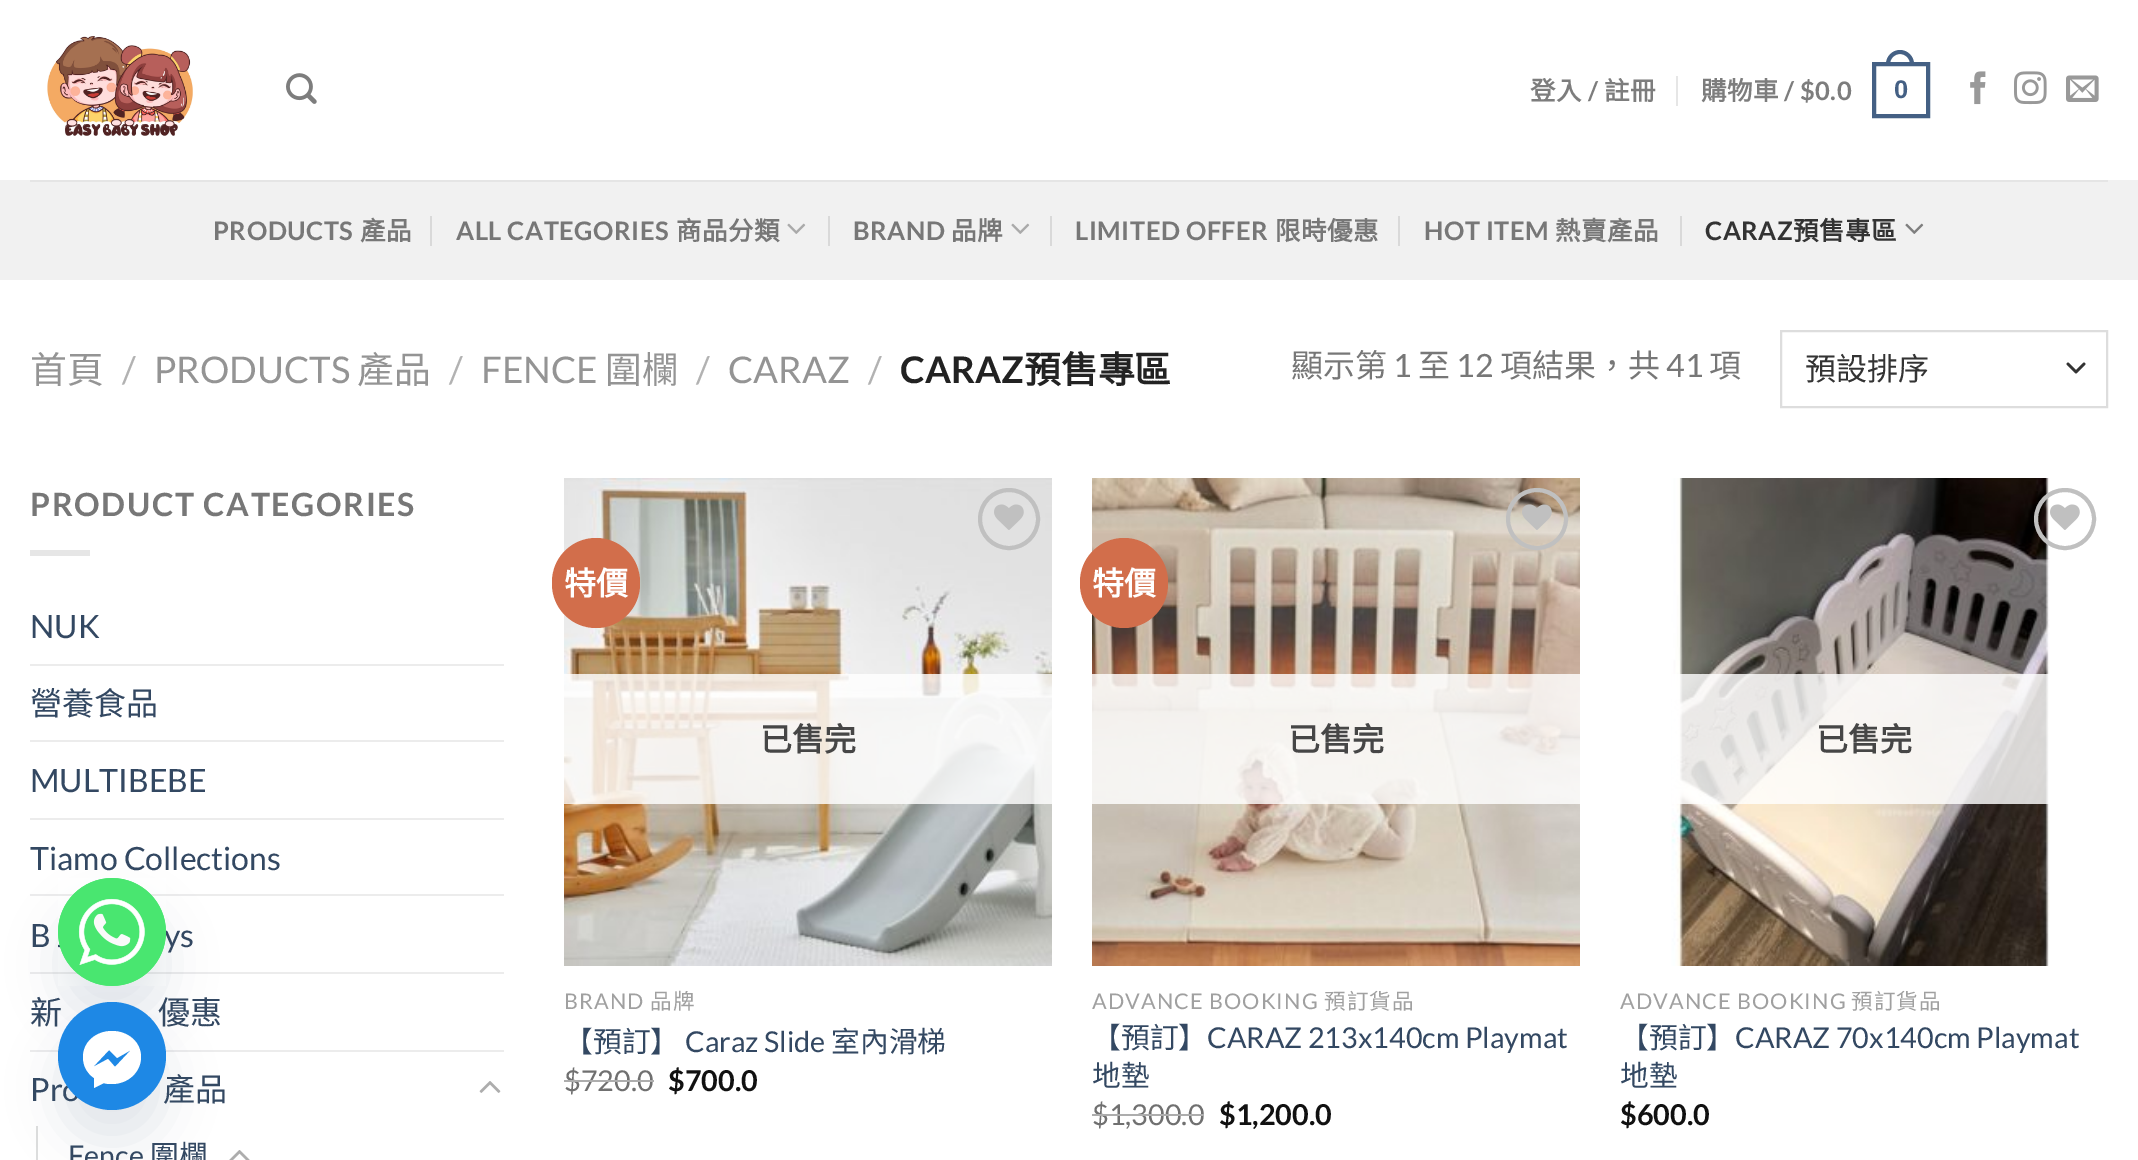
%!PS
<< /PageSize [2138 1160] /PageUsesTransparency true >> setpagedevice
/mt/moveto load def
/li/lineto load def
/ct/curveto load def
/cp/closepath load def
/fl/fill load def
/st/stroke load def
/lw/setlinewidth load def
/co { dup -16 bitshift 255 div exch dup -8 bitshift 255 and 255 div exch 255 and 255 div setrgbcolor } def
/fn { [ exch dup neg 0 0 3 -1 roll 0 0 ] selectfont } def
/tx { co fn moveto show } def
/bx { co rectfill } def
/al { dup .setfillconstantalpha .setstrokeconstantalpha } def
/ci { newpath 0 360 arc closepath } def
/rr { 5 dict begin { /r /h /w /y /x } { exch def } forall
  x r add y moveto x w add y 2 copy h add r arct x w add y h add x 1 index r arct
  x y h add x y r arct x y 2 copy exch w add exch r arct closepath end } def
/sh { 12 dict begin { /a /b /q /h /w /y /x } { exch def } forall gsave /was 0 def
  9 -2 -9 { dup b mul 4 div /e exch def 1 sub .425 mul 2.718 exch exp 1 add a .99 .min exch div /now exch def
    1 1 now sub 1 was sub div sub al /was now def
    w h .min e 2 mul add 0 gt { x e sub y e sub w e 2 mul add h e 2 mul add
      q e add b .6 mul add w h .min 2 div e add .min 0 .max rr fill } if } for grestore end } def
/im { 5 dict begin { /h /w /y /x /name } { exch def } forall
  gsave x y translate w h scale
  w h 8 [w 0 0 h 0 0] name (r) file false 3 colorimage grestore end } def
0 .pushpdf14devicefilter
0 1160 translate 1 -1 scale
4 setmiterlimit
0 0 2138 1160 16#FFFFFF bx
(media/1.raw) 47 36 146 100 im
(media/2.raw) 286 73 31 31 im
1676 76 2 30 16#E6E6E6 bx
16#446084 co
4 lw
1874 64 54 52 rectstroke
1900 50 mt 1907.5 50 1914 56.5 1914 64 ct 1914 66 li 1886 66 li 1886 64 li 1886 56.5 1892.5 50 1900 50 ct cp 1900 54 mt 1905.5 54 1910 58.5 1910 64 ct 1910 66 li 1890 66 li 1890 64 li 1890 58.5 1894.5 54 1900 54 ct cp eofill
(media/3.raw) 1970 71 16 34 im
(media/4.raw) 2014 71 33 34 im
(media/5.raw) 2066 75 33 27 im
0 180 2138 100 16#F1F1F1 bx
30 180 2078 2 16#E5E5E5 bx
430 216 2 30 16#D9D9D9 bx
(media/6.raw) 787 223 19 11 im
828 216 2 30 16#D9D9D9 bx
(media/6.raw) 1011 223 19 11 im
1050 216 2 30 16#D9D9D9 bx
1398 216 2 30 16#D9D9D9 bx
1680 216 2 30 16#D9D9D9 bx
(media/7.raw) 1905 223 19 11 im
16#333333 co
2.7 lw
1 setlinecap
1 setlinejoin
2068 364 mt 2076 372 li 2084 364 li st
16#DDDDDD co
2 lw
0 setlinecap
0 setlinejoin
1781 331 326 76 rectstroke
30 550 60 6 16#E6E6E6 bx
30 664 474 2 16#ECECEC bx
30 740 474 2 16#ECECEC bx
30 818 474 2 16#ECECEC bx
30 894 474 2 16#ECECEC bx
30 972 474 2 16#ECECEC bx
30 1050 474 2 16#ECECEC bx
(media/8.raw) 479 1081 22 12 im
36 1126 2 34 16#DDDDDD bx
(media/9.raw) 229 1150 21 10 im
(media/10.raw) 564 478 488 488 im
16#D26E4B co
552 538 88 90 44 rr fl
16#C0C0C0 co
4 lw
1009 519 29 ci st
(media/11.raw) 994 504 30 26 im
0.81 al
564 674 488 130 16#FFFFFF bx
1 al
(media/12.raw) 1092 478 488 488 im
16#D26E4B co
1080 538 88 90 44 rr fl
16#C0C0C0 co
1537 519 29 ci st
(media/13.raw) 1522 504 30 26 im
0.81 al
1092 674 488 130 16#FFFFFF bx
1 al
(media/14.raw) 1671 478 379 488 im
16#C0C0C0 co
2065 519 29 ci st
(media/15.raw) 2050 504 30 26 im
0.81 al
1672 674 378 130 16#FFFFFF bx
1 al
16#49687E co
58 910 108 108 54 24 .16 sh
/NotoSansCJKHK-Bold 25.5 fn
16#7D7D7D co
1530 100 mt .5 0 (登入) ashow
/Lato-Bold 25.5 fn
1588 100 mt .5 0 (/) ashow
/NotoSansCJKHK-Bold 25.5 fn
1604 100 mt .5 0 (註冊) ashow
1701 100 mt .5 0 (購物車) ashow
/Lato-Bold 25.5 fn
1784 100 mt .5 0 (/ $0.0) ashow
/LiberationSans-Bold 25.5 fn
16#446084 co
1894 98 mt .5 0 (0) ashow
/Lato-Bold 25.5 fn
16#777777 co
213 240 mt .5 0 (PRODUCTS) ashow
/NotoSansCJKHK-Bold 25.5 fn
360 240 mt .5 0 (產品) ashow
/Lato-Bold 25.5 fn
456 240 mt .5 0 (ALL CATEGORIES) ashow
/NotoSansCJKHK-Bold 25.5 fn
676 240 mt .5 0 (商品分類) ashow
/Lato-Bold 25.5 fn
853 240 mt .5 0 (BRAND) ashow
/NotoSansCJKHK-Bold 25.5 fn
951 240 mt .5 0 (品牌) ashow
/Lato-Bold 25.5 fn
1075 240 mt .5 0 (LIMITED OFFER) ashow
/NotoSansCJKHK-Bold 25.5 fn
1275 240 mt .5 0 (限時優惠) ashow
/Lato-Bold 25.5 fn
1424 240 mt .5 0 (HOT ITEM) ashow
/NotoSansCJKHK-Bold 25.5 fn
1555 240 mt .5 0 (熱賣產品) ashow
/Lato-Bold 25.5 fn
16#333333 co
1705 240 mt .5 0 (CARAZ) ashow
/NotoSansCJKHK-Bold 25.5 fn
1793 240 mt .5 0 (預售專區) ashow
(首頁) 30 383 /NotoSansCJKHK-Regular 36.75 16#949494 tx
(/) 122 383 /Lato-Regular 36.75 16#B2B2B2 tx
(PRODUCTS) 154 383 /Lato-Regular 36.75 16#949494 tx
(產品) 357 383 /NotoSansCJKHK-Regular 36.75 16#949494 tx
(/) 449 383 /Lato-Regular 36.75 16#B2B2B2 tx
(FENCE) 481 383 /Lato-Regular 36.75 16#949494 tx
(圍欄) 605 383 /NotoSansCJKHK-Regular 36.75 16#949494 tx
(/) 696 383 /Lato-Regular 36.75 16#B2B2B2 tx
(CARAZ) 728 383 /Lato-Regular 36.75 16#949494 tx
(/) 868 383 /Lato-Regular 36.75 16#B2B2B2 tx
(CARAZ) 900 383 /Lato-Bold 36.75 16#222222 tx
(預售專區) 1024 383 /NotoSansCJKHK-Bold 36.75 16#222222 tx
(顯示第) 1291 377 /NotoSansCJKHK-Regular 32 16#777777 tx
(1) 1393 377 /Lato-Regular 32 16#777777 tx
(至) 1418 377 /NotoSansCJKHK-Regular 32 16#777777 tx
(12) 1456 377 /Lato-Regular 32 16#777777 tx
(項結果，共) 1500 377 /NotoSansCJKHK-Regular 32 16#777777 tx
(41) 1666 377 /Lato-Regular 32 16#777777 tx
(項) 1709 377 /NotoSansCJKHK-Regular 32 16#777777 tx
(預設排序) 1805 380 /NotoSansCJKHK-Regular 31 16#333333 tx
/Lato-Bold 32 fn
16#777777 co
30 516 mt 1.6 0 (PRODUCT CATEGORIES) ashow
(NUK) 30 638 /Lato-Regular 32 16#334862 tx
(營養食品) 30 715 /NotoSansCJKHK-Regular 32 16#334862 tx
(MULTIBEBE) 30 792 /Lato-Regular 32 16#334862 tx
(Tiamo Collections) 30 870 /Lato-Regular 32 16#334862 tx
(B) 30 947 /Lato-Regular 32 16#334862 tx
(ys) 164 947 /Lato-Regular 32 16#334862 tx
(新) 30 1024 /NotoSansCJKHK-Regular 32 16#334862 tx
(優惠) 158 1024 /NotoSansCJKHK-Regular 32 16#334862 tx
(Pro) 30 1101 /Lato-Regular 32 16#334862 tx
(產品) 163 1101 /NotoSansCJKHK-Regular 32 16#334862 tx
(Fence) 68 1166 /Lato-Regular 28.75 16#334862 tx
(圍欄) 150 1166 /NotoSansCJKHK-Regular 28.75 16#334862 tx
(特價) 564 595 /NotoSansCJKHK-Bold 32 16#FFFFFF tx
(已售完) 760 751 /NotoSansCJKHK-Bold 32 16#464646 tx
/Lato-Regular 21.6 fn
16#A0A0A0 co
564 1009 mt 1.1 0 (BRAND) ashow
/NotoSansCJKHK-Regular 21.6 fn
650 1009 mt 1.1 0 (品牌) ashow
(【預訂】) 564 1052 /NotoSansCJKHK-Regular 28.75 16#334862 tx
(Caraz Slide) 685 1052 /Lato-Regular 28.75 16#334862 tx
(室內滑梯) 831 1052 /NotoSansCJKHK-Regular 28.75 16#334862 tx
($720.0) 564 1091 /Lato-Regular 28.75 16#707070 tx
564 1080 90 2 16#ADADAD bx
($700.0) 668 1091 /Lato-Bold 28.75 16#111111 tx
(特價) 1092 595 /NotoSansCJKHK-Bold 32 16#FFFFFF tx
(已售完) 1288 751 /NotoSansCJKHK-Bold 32 16#464646 tx
/Lato-Regular 21.6 fn
16#A0A0A0 co
1092 1009 mt 1.1 0 (ADVANCE BOOKING) ashow
/NotoSansCJKHK-Regular 21.6 fn
1324 1009 mt 1.1 0 (預訂貨品) ashow
(【預訂】) 1092 1048 /NotoSansCJKHK-Regular 28.75 16#334862 tx
(CARAZ 213x140cm Playmat) 1207 1048 /Lato-Regular 28.75 16#334862 tx
(地墊) 1092 1086 /NotoSansCJKHK-Regular 28.75 16#334862 tx
($1,300.0) 1092 1125 /Lato-Regular 28.75 16#707070 tx
1092 1114 112 2 16#ADADAD bx
($1,200.0) 1219 1125 /Lato-Bold 28.75 16#111111 tx
(已售完) 1816 751 /NotoSansCJKHK-Bold 32 16#464646 tx
/Lato-Regular 21.6 fn
16#A0A0A0 co
1620 1009 mt 1.1 0 (ADVANCE BOOKING) ashow
/NotoSansCJKHK-Regular 21.6 fn
1851 1009 mt 1.1 0 (預訂貨品) ashow
(【預訂】) 1620 1048 /NotoSansCJKHK-Regular 28.75 16#334862 tx
(CARAZ 70x140cm Playmat) 1735 1048 /Lato-Regular 28.75 16#334862 tx
(地墊) 1620 1086 /NotoSansCJKHK-Regular 28.75 16#334862 tx
($600.0) 1620 1125 /Lato-Bold 28.75 16#111111 tx
(media/16.raw) 58 878 108 108 im
16#49687E co
58 1034 108 108 54 24 .16 sh
16#1E88E5 co
112 1056 54 ci fl
16#FFFFFF co
83 1057 mt 83 1042 96 1031 112 1031 ct 128 1031 141 1042 141 1057 ct 141 1072 128 1084 112 1084 ct 109 1084 106 1084 104 1083 ct 94 1088 li 94 1078 li 87 1073 83 1066 83 1057 ct cp 108 1059 mt 115 1067 li 131 1050 li 117 1058 li 109 1050 li 93 1067 li cp eofill
.poppdf14devicefilter showpage
